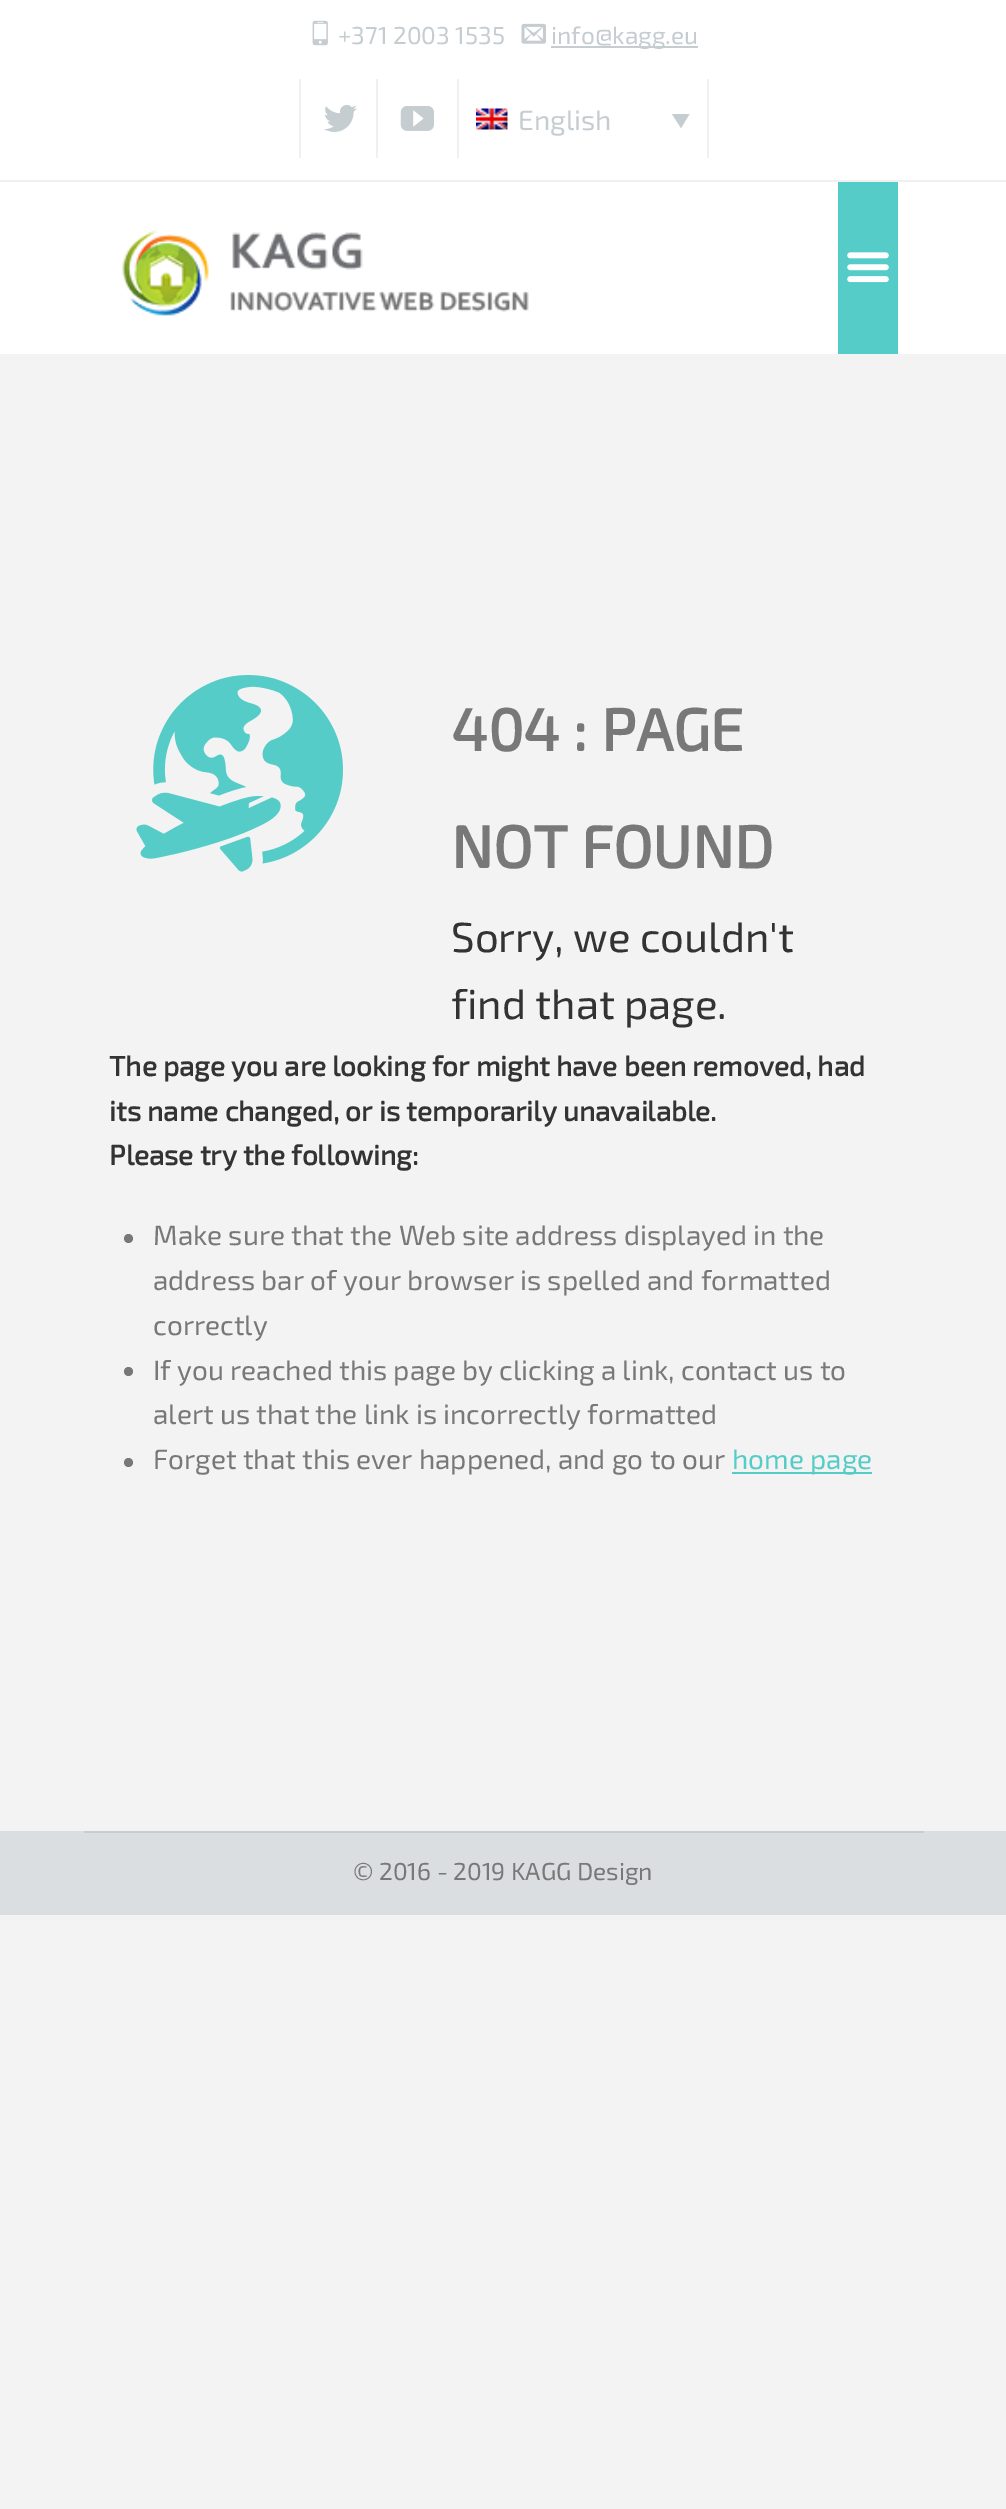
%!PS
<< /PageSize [1006 2509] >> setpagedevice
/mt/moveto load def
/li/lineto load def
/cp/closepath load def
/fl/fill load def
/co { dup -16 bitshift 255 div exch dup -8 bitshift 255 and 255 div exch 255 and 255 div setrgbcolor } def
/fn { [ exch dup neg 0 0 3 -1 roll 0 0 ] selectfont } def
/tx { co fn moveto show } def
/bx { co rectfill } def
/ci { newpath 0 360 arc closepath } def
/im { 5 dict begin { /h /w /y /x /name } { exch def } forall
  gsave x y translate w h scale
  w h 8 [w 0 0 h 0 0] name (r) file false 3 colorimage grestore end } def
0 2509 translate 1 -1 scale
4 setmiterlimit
0 0 1006 2509 16#F3F3F3 bx
0 0 1006 180 16#FFFFFF bx
0 180 1006 2 16#F0F0F0 bx
(media/1.raw) 312 20 16 26 im
(media/2.raw) 521 23 25 21 im
551 46 147 2 16#C5CDD1 bx
376 79 2 79 16#F0F0F0 bx
299 79 2 79 16#F0F0F0 bx
(media/3.raw) 324 105 33 27 im
(media/4.raw) 400 106 34 25 im
707 79 2 79 16#F0F0F0 bx
457 79 2 79 16#F0F0F0 bx
(media/5.raw) 476 108 32 22 im
16#C5CDD1 co
672 114 mt 689.5 114 li 681 128 li cp fl
0 182 1006 172 16#FFFFFF bx
(media/6.raw) 122 229 407 87 im
838 182 60 172 16#56CCC8 bx
(media/7.raw) 847 252 42 31 im
(media/8.raw) 136 675 207 197 im
16#787878 co
128.5 1238.5 4.5 ci fl
128.5 1371.5 4.5 ci fl
128.5 1462.5 4.5 ci fl
732 1472 140 2 16#56CCC7 bx
0 1831 1006 84 16#DBDEE0 bx
84 1831 840 2 16#C5CDD1 bx
(+371 2003 1535) 338 44 /Exo2-Regular 24.5 16#C5CDD1 tx
(info@kagg.eu) 551 44 /Exo2-Regular 24.5 16#C5CDD1 tx
(English) 518 130 /Exo2-Regular 28 16#C5CDD1 tx
(404 : PAGE) 451 751 /Exo2-Bold 59.5 16#787878 tx
(NOT FOUND) 451 868 /Exo2-Bold 59.5 16#787878 tx
(Sorry, we couldn't) 451 952 /Exo2-Regular 42 16#333333 tx
(find that page.) 451 1019 /Exo2-Regular 42 16#333333 tx
(The page you are looking for might have been removed, had) 109 1076 /Exo2-Bold 28 16#333333 tx
(its name changed, or is temporarily unavailable.) 109 1121 /Exo2-Bold 28 16#333333 tx
(Please try the following:) 109 1165 /Exo2-Bold 28 16#333333 tx
(Make sure that the Web site address displayed in the) 153 1245 /Exo2-Regular 28 16#787878 tx
(address bar of your browser is spelled and formatted) 153 1290 /Exo2-Regular 28 16#787878 tx
(correctly) 153 1335 /Exo2-Regular 28 16#787878 tx
(If you reached this page by clicking a link, contact us to) 153 1380 /Exo2-Regular 28 16#787878 tx
(alert us that the link is incorrectly formatted) 153 1424 /Exo2-Regular 28 16#787878 tx
(Forget that this ever happened, and go to our) 153 1469 /Exo2-Regular 28 16#787878 tx
(home page) 732 1469 /Exo2-Regular 28 16#56CCC7 tx
(© 2016 - 2019 KAGG Design) 353 1880 /Exo2-Regular 24.5 16#787878 tx
showpage
